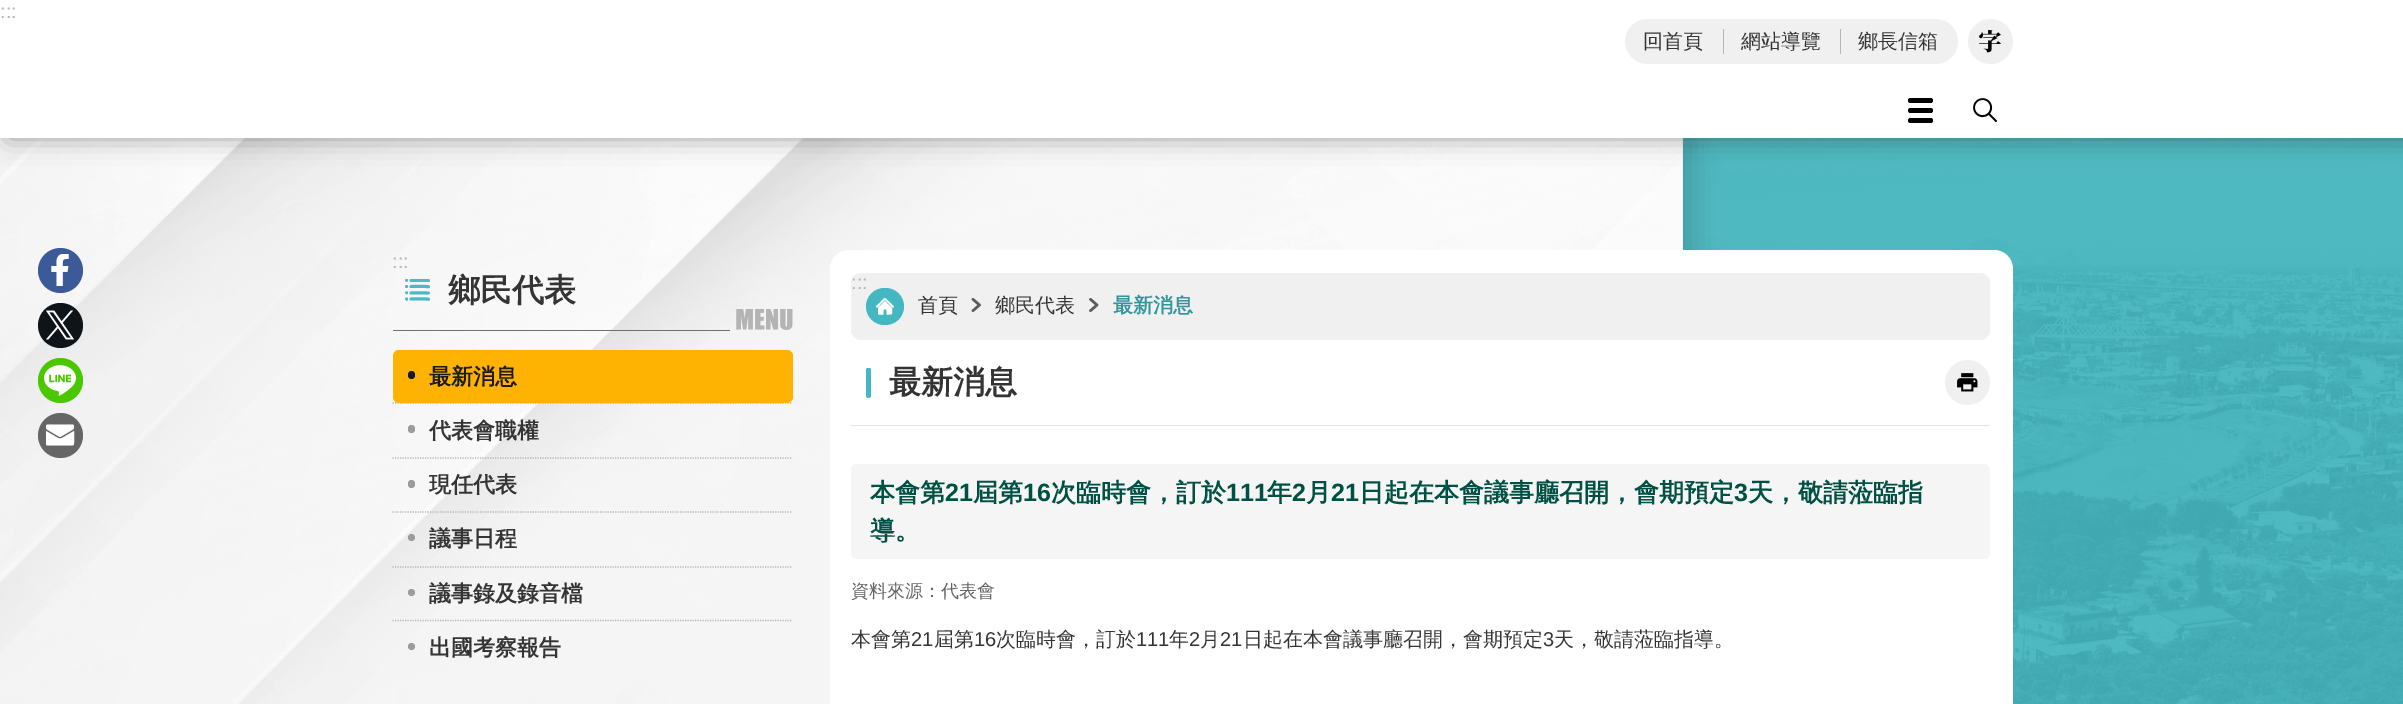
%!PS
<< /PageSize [2403 704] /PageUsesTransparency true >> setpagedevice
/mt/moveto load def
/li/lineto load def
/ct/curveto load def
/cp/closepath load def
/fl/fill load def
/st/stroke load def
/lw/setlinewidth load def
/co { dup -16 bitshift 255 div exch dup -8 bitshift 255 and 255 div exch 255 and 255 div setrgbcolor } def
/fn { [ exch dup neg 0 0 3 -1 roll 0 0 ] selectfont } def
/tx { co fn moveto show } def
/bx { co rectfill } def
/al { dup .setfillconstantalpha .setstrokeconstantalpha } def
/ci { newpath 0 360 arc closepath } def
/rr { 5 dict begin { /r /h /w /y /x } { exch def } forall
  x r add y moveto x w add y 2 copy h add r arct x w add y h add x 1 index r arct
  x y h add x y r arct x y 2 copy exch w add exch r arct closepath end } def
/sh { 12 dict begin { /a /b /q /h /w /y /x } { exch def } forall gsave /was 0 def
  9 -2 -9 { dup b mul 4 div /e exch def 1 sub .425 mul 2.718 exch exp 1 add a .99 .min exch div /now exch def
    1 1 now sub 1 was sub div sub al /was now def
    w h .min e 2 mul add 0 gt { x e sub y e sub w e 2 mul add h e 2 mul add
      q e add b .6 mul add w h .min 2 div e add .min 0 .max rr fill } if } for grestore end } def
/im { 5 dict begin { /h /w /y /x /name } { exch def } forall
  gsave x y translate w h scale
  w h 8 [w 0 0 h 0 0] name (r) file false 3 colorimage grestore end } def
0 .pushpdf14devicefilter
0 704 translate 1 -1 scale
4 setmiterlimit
0 0 2403 704 16#43B8C1 bx
(media/1.raw) 1683 138 720 566 im
16#1A1A1A co
13 138 1682 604 0 12.5 .15 sh
0 138 1683 566 16#F0F0F0 bx
(media/7.raw) 0 138 1682 566 im
16#1A1A1A co
8 0 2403 138 0 12.5 .4 sh
0 0 2403 138 16#FFFFFF bx
16#F0F0F0 co
1625 19 333 45 22.5 rr fl
1723 29 1 25 16#B6B6B6 bx
1840 29 1 25 16#B6B6B6 bx
16#F0F0F0 co
1990.5 41.5 22.5 ci fl
(media/2.raw) 1979 30 22 23 im
16#000000 co
1908 98 25 5 2.5 rr fl
1908 108 25 5 2.5 rr fl
1908 118 25 5 2.5 rr fl
(media/3.raw) 1973 98 24 24 im
16#3C5998 co
60.5 270.5 22.5 ci fl
(media/4.raw) 51 254 18 32 im
16#0F1419 co
60.5 325.5 22.5 ci fl
(media/5.raw) 46 310 28 30 im
16#4BC700 co
60.5 380.5 22.5 ci fl
(media/6.raw) 44 365 32 31 im
16#666666 co
60.5 435.5 22.5 ci fl
16#FFFFFF co
47.5 424.5 mt 72.5 424.5 li 73 424.5 73.5 425 74 425.5 ct 74 428.5 li 73 429.5 li 61 436.5 li 60.5 437 59.5 437 59 436.5 ct 47 429.5 li 46 428.5 li 46 425.5 li 46.5 425 47 424.5 47.5 424.5 ct cp 46 444.5 mt 46 431 li 58 438 li 59.5 438.5 60.5 438.5 62 438 ct 74 431 li 74 433 74.5 444.5 73.5 445 ct 72.5 445.5 li 47 445.5 li cp eofill
16#4ABBC4 co
407.5 279 mt 406 279 405.5 279 405 280 ct 405.5 281.5 li 407 283 409 280 407.5 279 ct cp 405 286.5 mt 405 288.5 408 288.5 408 286.5 ct 408 284.5 405 284.5 405 286.5 ct cp 405 293 mt 406 294 li 408 295.5 409 291 406.5 291.5 ct 405.5 291.5 405 292 405 293 ct cp 405 299 mt 406 300.5 li 408 302 409 297.5 406.5 297.5 ct 405.5 297.5 405 298.5 405 299 ct cp 430 280.5 mt 430 281.5 429.5 282 428.5 282 ct 411 282 li 410.5 282 409.5 281 409.5 280.5 ct 409.5 280 410 279.5 410.5 279 ct 429 279 li 429.5 279.5 430 280 430 280.5 ct cp 411 285 mt 413.5 285 428.5 284.5 429.5 285.5 ct 430 287 li 429.5 289 426.5 288 425.5 288 ct 410.5 288 li 409 287.5 409.5 285 411 285 ct cp 411 291.5 mt 413.5 291.5 428.5 291 429.5 292 ct 430 293 li 429.5 295 426.5 294.5 425.5 294.5 ct 410.5 294.5 li 409 293.5 409.5 291.5 411 291.5 ct cp 411 297.5 mt 413.5 297.5 428.5 297 429.5 298 ct 430 299.5 li 429.5 301.5 426.5 300.5 425.5 300.5 ct 410.5 300.5 li 409 300 409.5 297.5 411 297.5 ct cp eofill
(media/8.raw) 736 309 57 21 im
393 330 337 1 16#707070 bx
16#B6B6B6 co
1.2 lw
[1.25 1.25] 0 setdash
392.5 403 mt 792.5 403 li st
16#FEB201 co
393 350 400 53 6 rr fl
16#1A1A1A co
408 371 7 8 3.5 rr fl
16#9C9C9C co
408 425 7 8 3.5 rr fl
16#B6B6B6 co
392.5 458 mt 792.5 458 li st
16#9C9C9C co
408 480 7 8 3.5 rr fl
16#B6B6B6 co
392.5 512 mt 792.5 512 li st
16#9C9C9C co
411.5 537.5 3.5 ci fl
16#B6B6B6 co
392.5 567 mt 792.5 567 li st
16#9C9C9C co
411.5 592.5 3.5 ci fl
16#B6B6B6 co
392.5 620.5 mt 792.5 620.5 li st
16#9C9C9C co
411.5 646.5 3.5 ci fl
16#FFFFFF co
830 250 1183 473 19 rr fl
16#F0F0F0 co
851 273 1139 67 10 rr fl
16#43B8C1 co
866 288 38 37 18.5 rr fl
(media/9.raw) 971 298 10 14 im
(media/10.raw) 1089 298 10 14 im
16#FFFFFF co
885 298 mt 883.5 298 880.5 302.5 879 303.5 ct 879 303.5 874.5 307 876.5 307.5 ct 878 308 879.5 305.5 880 305 ct 885 300 li 890 305 li 890.5 305.5 892.5 308.5 893.5 307.5 ct 895 306.5 891 304 891 303.5 ct cp 878 308 mt 885 301 li 892 308 li 892 315 893.5 314.5 886.5 314.5 ct 886.5 311 li 886.5 309 886.5 309.5 885 309.5 ct 883.5 309.5 883.5 309 883.5 311 ct 883.5 314.5 li 882.5 314.5 878 315.5 878 313.5 ct cp eofill
851 425 1139 1 16#E4E4E4 bx
16#43B8C1 co
866 368 5 30 2.5 rr fl
868.5 368 mt 870 368 871 369 871 370.5 ct 871 378 li 866 378 li 866 370.5 li 866 369 867 368 868.5 368 ct cp fl
16#F0F0F0 co
1967.5 382.5 22.5 ci fl
(media/11.raw) 1957 373 21 19 im
16#F5F5F5 co
851 464 1139 95 6 rr fl
(:::) 0 18 /LiberationSans-Regular 20 16#B6B6B6 tx
(回首頁) 1643 48 /WenQuanYiZenHei-Medium 20 16#343434 tx
(網站導覽) 1741 48 /WenQuanYiZenHei-Medium 20 16#343434 tx
(鄉長信箱) 1858 48 /WenQuanYiZenHei-Medium 20 16#343434 tx
(:::) 392 268 /LiberationSans-Regular 20 16#B6B6B6 tx
(鄉民代表) 448 301 /WenQuanYiZenHei-Bold 32 16#343434 tx
(最新消息) 429 384 /WenQuanYiZenHei-Bold 22 16#1A1A1A tx
(代表會職權) 429 438 /WenQuanYiZenHei-Bold 22 16#343434 tx
(現任代表) 429 492 /WenQuanYiZenHei-Bold 22 16#343434 tx
(議事日程) 429 546 /WenQuanYiZenHei-Bold 22 16#343434 tx
(議事錄及錄音檔) 429 601 /WenQuanYiZenHei-Bold 22 16#343434 tx
(出國考察報告) 429 655 /WenQuanYiZenHei-Bold 22 16#343434 tx
(:::) 851 289 /LiberationSans-Regular 20 16#B6B6B6 tx
(首頁) 918 312 /WenQuanYiZenHei-Medium 20 16#343434 tx
(鄉民代表) 995 312 /WenQuanYiZenHei-Medium 20 16#343434 tx
(最新消息) 1113 312 /WenQuanYiZenHei-Bold 20 16#34969D tx
(最新消息) 889 393 /WenQuanYiZenHei-Bold 32 16#343434 tx
(本會第) 870 501 /WenQuanYiZenHei-Bold 25 16#005144 tx
(21) 945 501 /LiberationSans-Bold 25 16#005144 tx
(屆第) 973 501 /WenQuanYiZenHei-Bold 25 16#005144 tx
(16) 1023 501 /LiberationSans-Bold 25 16#005144 tx
(次臨時會，訂於) 1051 501 /WenQuanYiZenHei-Bold 25 16#005144 tx
(111) 1226 501 /LiberationSans-Bold 25 16#005144 tx
(年) 1267 501 /WenQuanYiZenHei-Bold 25 16#005144 tx
(2) 1292 501 /LiberationSans-Bold 25 16#005144 tx
(月) 1306 501 /WenQuanYiZenHei-Bold 25 16#005144 tx
(21) 1331 501 /LiberationSans-Bold 25 16#005144 tx
(日起在本會議事廳召開，會期預定) 1359 501 /WenQuanYiZenHei-Bold 25 16#005144 tx
(3) 1734 501 /LiberationSans-Bold 25 16#005144 tx
(天，敬請蒞臨指) 1748 501 /WenQuanYiZenHei-Bold 25 16#005144 tx
(導。) 870 539 /WenQuanYiZenHei-Bold 25 16#005144 tx
(資料來源：代表會) 851 597 /WenQuanYiZenHei-Medium 18 16#646464 tx
(本會第) 851 646 /WenQuanYiZenHei-Medium 20 16#343434 tx
(21) 911 646 /LiberationSans-Regular 20 16#343434 tx
(屆第) 934 646 /WenQuanYiZenHei-Medium 20 16#343434 tx
(16) 974 646 /LiberationSans-Regular 20 16#343434 tx
(次臨時會，訂於) 996 646 /WenQuanYiZenHei-Medium 20 16#343434 tx
(111) 1136 646 /LiberationSans-Regular 20 16#343434 tx
(年) 1169 646 /WenQuanYiZenHei-Medium 20 16#343434 tx
(2) 1189 646 /LiberationSans-Regular 20 16#343434 tx
(月) 1200 646 /WenQuanYiZenHei-Medium 20 16#343434 tx
(21) 1220 646 /LiberationSans-Regular 20 16#343434 tx
(日起在本會議事廳召開，會期預定) 1243 646 /WenQuanYiZenHei-Medium 20 16#343434 tx
(3) 1543 646 /LiberationSans-Regular 20 16#343434 tx
(天，敬請蒞臨指導。) 1554 646 /WenQuanYiZenHei-Medium 20 16#343434 tx
.poppdf14devicefilter showpage
